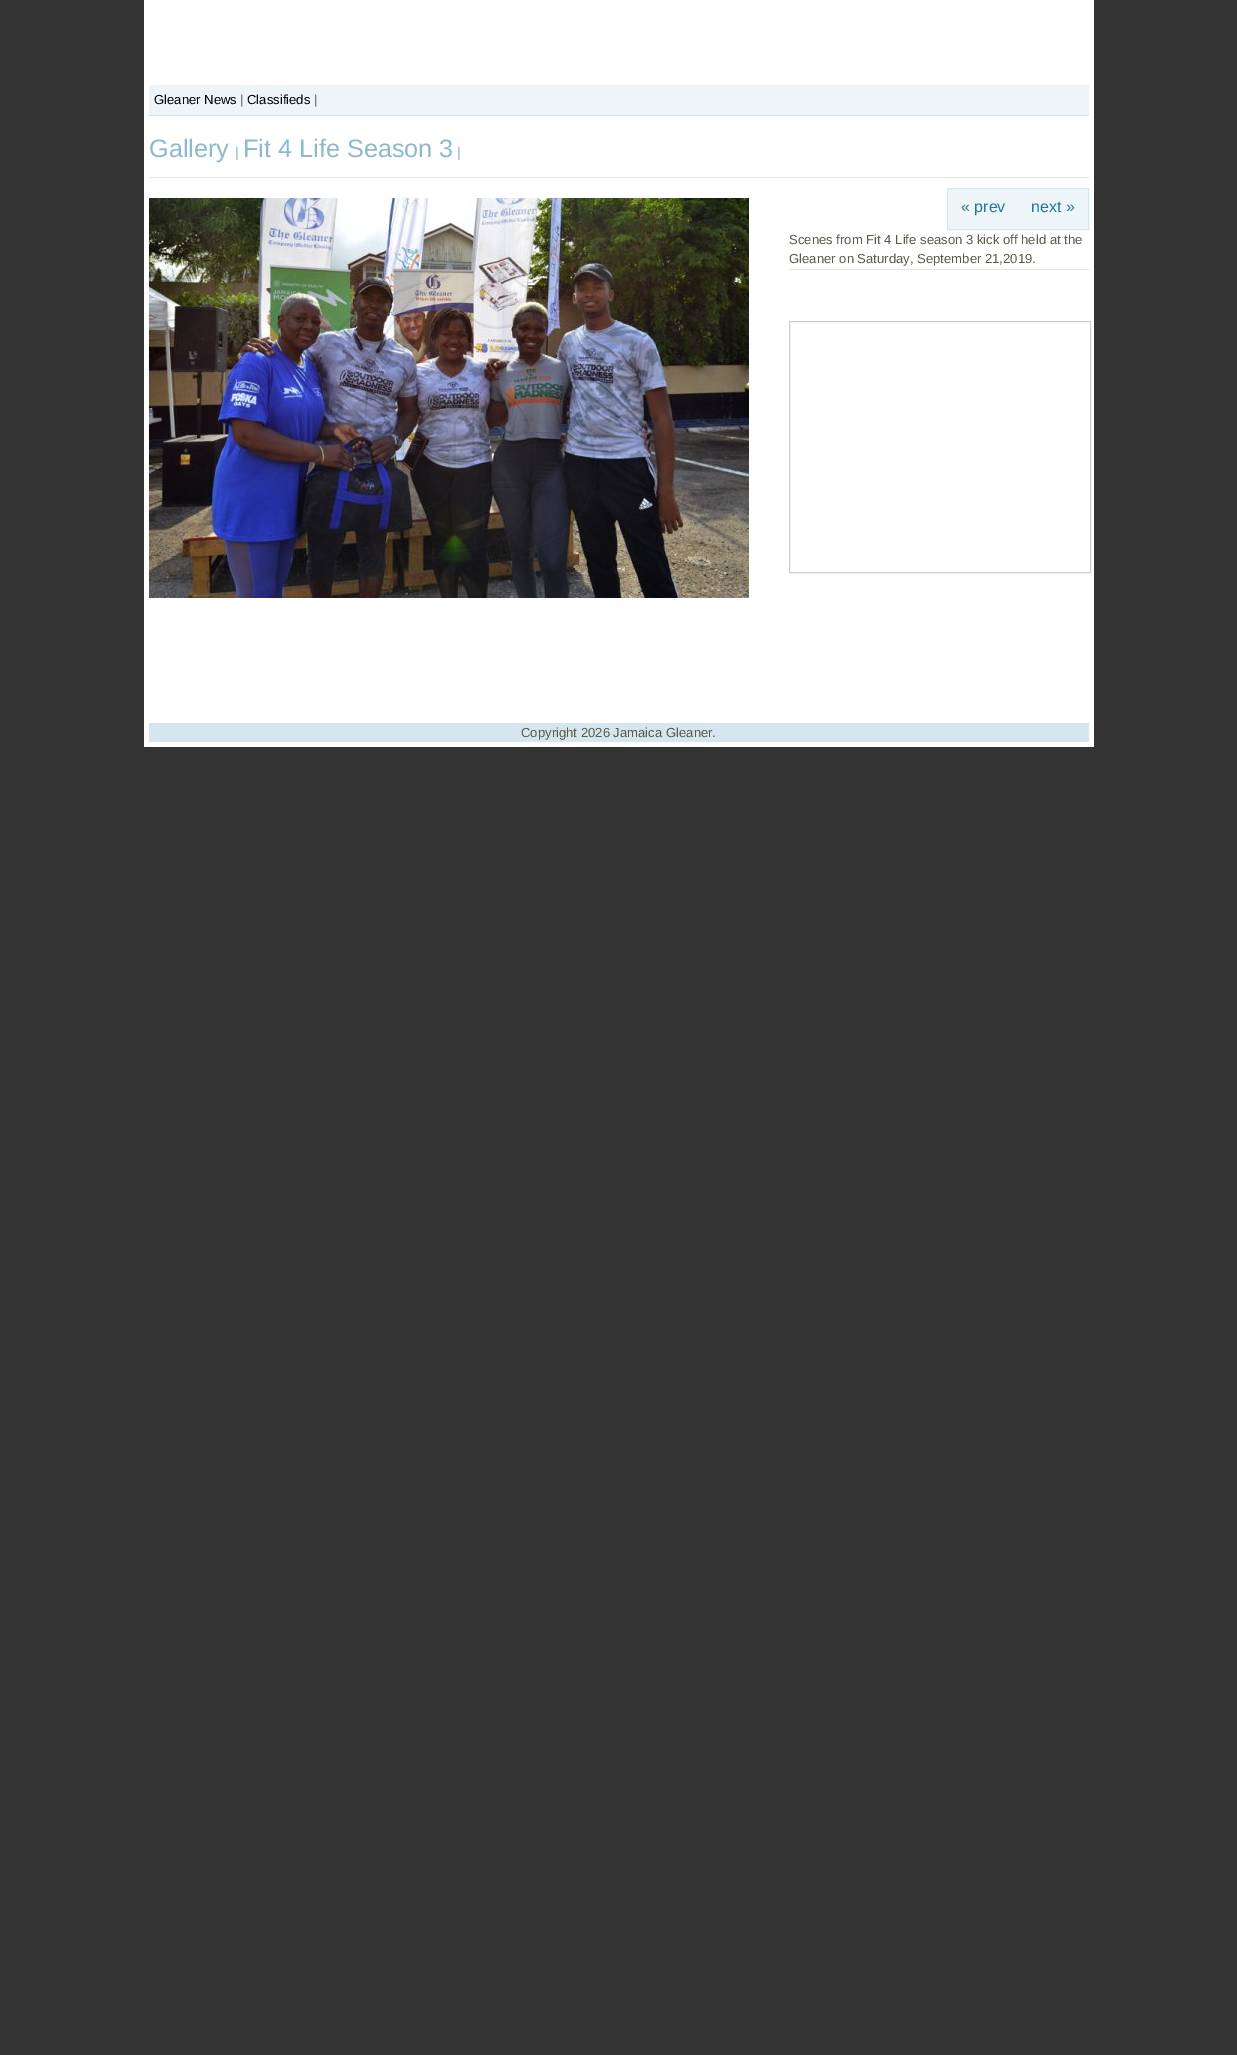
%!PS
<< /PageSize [1237 2055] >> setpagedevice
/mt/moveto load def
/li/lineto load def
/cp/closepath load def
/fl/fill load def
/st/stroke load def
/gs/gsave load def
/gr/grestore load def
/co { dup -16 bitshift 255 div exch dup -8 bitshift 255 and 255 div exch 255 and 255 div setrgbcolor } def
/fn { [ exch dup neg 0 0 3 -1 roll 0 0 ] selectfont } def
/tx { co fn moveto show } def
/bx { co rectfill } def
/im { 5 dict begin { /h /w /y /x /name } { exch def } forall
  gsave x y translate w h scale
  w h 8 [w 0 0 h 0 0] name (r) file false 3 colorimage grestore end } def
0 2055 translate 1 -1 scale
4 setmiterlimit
0 0 1237 2055 16#333333 bx
144 0 950 747 16#FFFFFF bx
149 85 940 30 16#EEF5F9 bx
149 115 940 1 16#D5E6EE bx
149 177 940 1 16#E6E6DF bx
(media/1.raw) 149 198 600 400 im
16#EEF5F9 co
947.5 188.5 mt 1088.5 188.5 li 1088.5 229.5 li 947.5 229.5 li cp gs fl gr
16#D5E6EE co
st
789 269 300 1 16#E6E6DF bx
16#CCCCCC co
789.5 321.5 301 251 rectstroke
149 723 940 19 16#D5E6EE bx
(Gleaner News) 154 104 /LiberationSans-Regular 13.1 16#000000 tx
(|) 240 104 /LiberationSans-Regular 13.1 16#5A5A4B tx
(Classifieds) 247 104 /LiberationSans-Regular 13.1 16#000000 tx
(|) 314 104 /LiberationSans-Regular 13.1 16#5A5A4B tx
(Gallery) 149 157 /LiberationSans-Regular 25.25 16#8DB8CF tx
(|) 235 157 /LiberationSans-Regular 14 16#8DB8CF tx
(Fit 4 Life Season 3) 243 157 /LiberationSans-Regular 25.25 16#8DB8CF tx
(|) 457 157 /LiberationSans-Regular 14 16#8DB8CF tx
(« prev) 961 212 /LiberationSans-Regular 16 16#237898 tx
(next ») 1031 212 /LiberationSans-Regular 16 16#237898 tx
(Scenes from Fit 4 Life season 3 kick off held at the) 789 244 /LiberationSans-Regular 13.1 16#5A5A4B tx
(Gleaner on Saturday, September 21,2019.) 789 263 /LiberationSans-Regular 13.1 16#5A5A4B tx
(Copyright 2026 Jamaica Gleaner.) 521 737 /LiberationSans-Regular 13.1 16#5A5A4B tx
showpage
